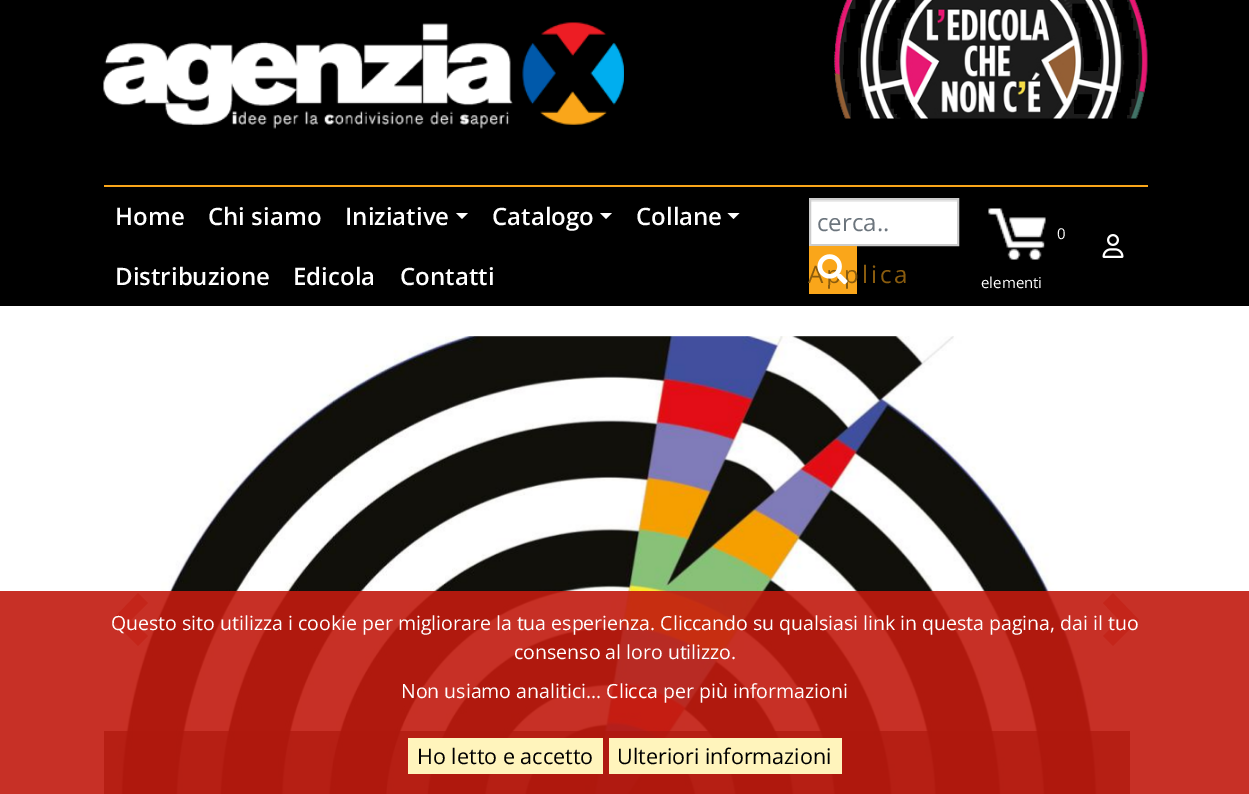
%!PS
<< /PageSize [1249 794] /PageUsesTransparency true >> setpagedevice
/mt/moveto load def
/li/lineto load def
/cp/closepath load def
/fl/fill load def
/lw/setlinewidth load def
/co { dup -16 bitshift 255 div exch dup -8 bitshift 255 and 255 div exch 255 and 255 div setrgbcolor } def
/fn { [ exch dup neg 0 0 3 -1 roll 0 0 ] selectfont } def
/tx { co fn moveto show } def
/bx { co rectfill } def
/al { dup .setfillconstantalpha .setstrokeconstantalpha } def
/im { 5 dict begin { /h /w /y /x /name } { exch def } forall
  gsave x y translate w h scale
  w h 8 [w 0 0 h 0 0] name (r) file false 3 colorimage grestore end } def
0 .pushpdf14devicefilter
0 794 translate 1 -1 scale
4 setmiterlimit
0 0 1249 794 16#FFFFFF bx
0 0 1249 306 16#000000 bx
(media/1.raw) 103 22 521 107 im
(media/2.raw) 834 0 314 119 im
104 185 1044 2 16#FAA61A bx
16#FFFFFF co
456 213 mt 468 213 li 462 219 li cp fl
600 213 mt 612 213 li 606 219 li cp fl
727.5 213 mt 739.5 213 li 733.5 219 li cp fl
811 202 146 42 16#FFFFFF bx
810 200 147 2 16#ECECEC bx
16#CCCCCC co
2 lw
810 199 148 46 rectstroke
809 246 48 48 16#FAA61A bx
(media/4.raw) 988 208 58 52 im
(media/5.raw) 1102 234 22 24 im
(media/6.raw) 118 336 985 458 im
0.7 al
104 731 1026 63 16#000000 bx
1 al
16#E08C86 co
138 593 mt 112 620 li 138 646 li 148 636 li 131 620 li 148 603 li cp fl
16#E08D87 co
1113 593 mt 1103 603 li 1119 620 li 1103 636 li 1113 646 li 1139 620 li cp fl
0.9 al
0 591 1249 203 16#C11A0E bx
1 al
408 738 195 36 16#FFF4BC bx
609 738 233 36 16#FFF4BC bx
(Home) 115 225 /OpenSans-SemiBold 24 16#FFFFFF tx
(Chi siamo) 208 225 /OpenSans-SemiBold 24 16#FFFFFF tx
(Iniziative) 345 225 /OpenSans-SemiBold 24 16#FFFFFF tx
(Catalogo) 492 225 /OpenSans-SemiBold 24 16#FFFFFF tx
(Collane) 636 225 /OpenSans-SemiBold 24 16#FFFFFF tx
(Distribuzione) 115 285 /OpenSans-SemiBold 24 16#FFFFFF tx
(Edicola) 293 285 /OpenSans-SemiBold 24 16#FFFFFF tx
(Contatti) 400 285 /OpenSans-SemiBold 24 16#FFFFFF tx
(cerca..) 817 231 /OpenSans-Regular 24 16#6C757D tx
16#8A5C0E co
808 283 mt 3 0 (Applica) ashow
(media/3.raw) 817 254 31 31 im
(0) 1057 239 /OpenSans-Regular 15 16#FFFFFF tx
(elementi) 981 288 /OpenSans-Regular 15 16#FFFFFF tx
(Questo sito utilizza i cookie per migliorare la tua esperienza. Cliccando su qualsiasi link in questa pagina, dai il tuo) 111 630 /OpenSans-Regular 19.5 16#FFFFFF tx
(consenso al loro utilizzo.) 514 659 /OpenSans-Regular 19.5 16#FFFFFF tx
(Non usiamo analitici... Clicca per più informazioni) 401 698 /OpenSans-Regular 19.5 16#FFFFFF tx
(Ho letto e accetto) 417 764 /OpenSans-Regular 21.5 16#000000 tx
(Ulteriori informazioni) 617 764 /OpenSans-Regular 21.5 16#000000 tx
.poppdf14devicefilter showpage
